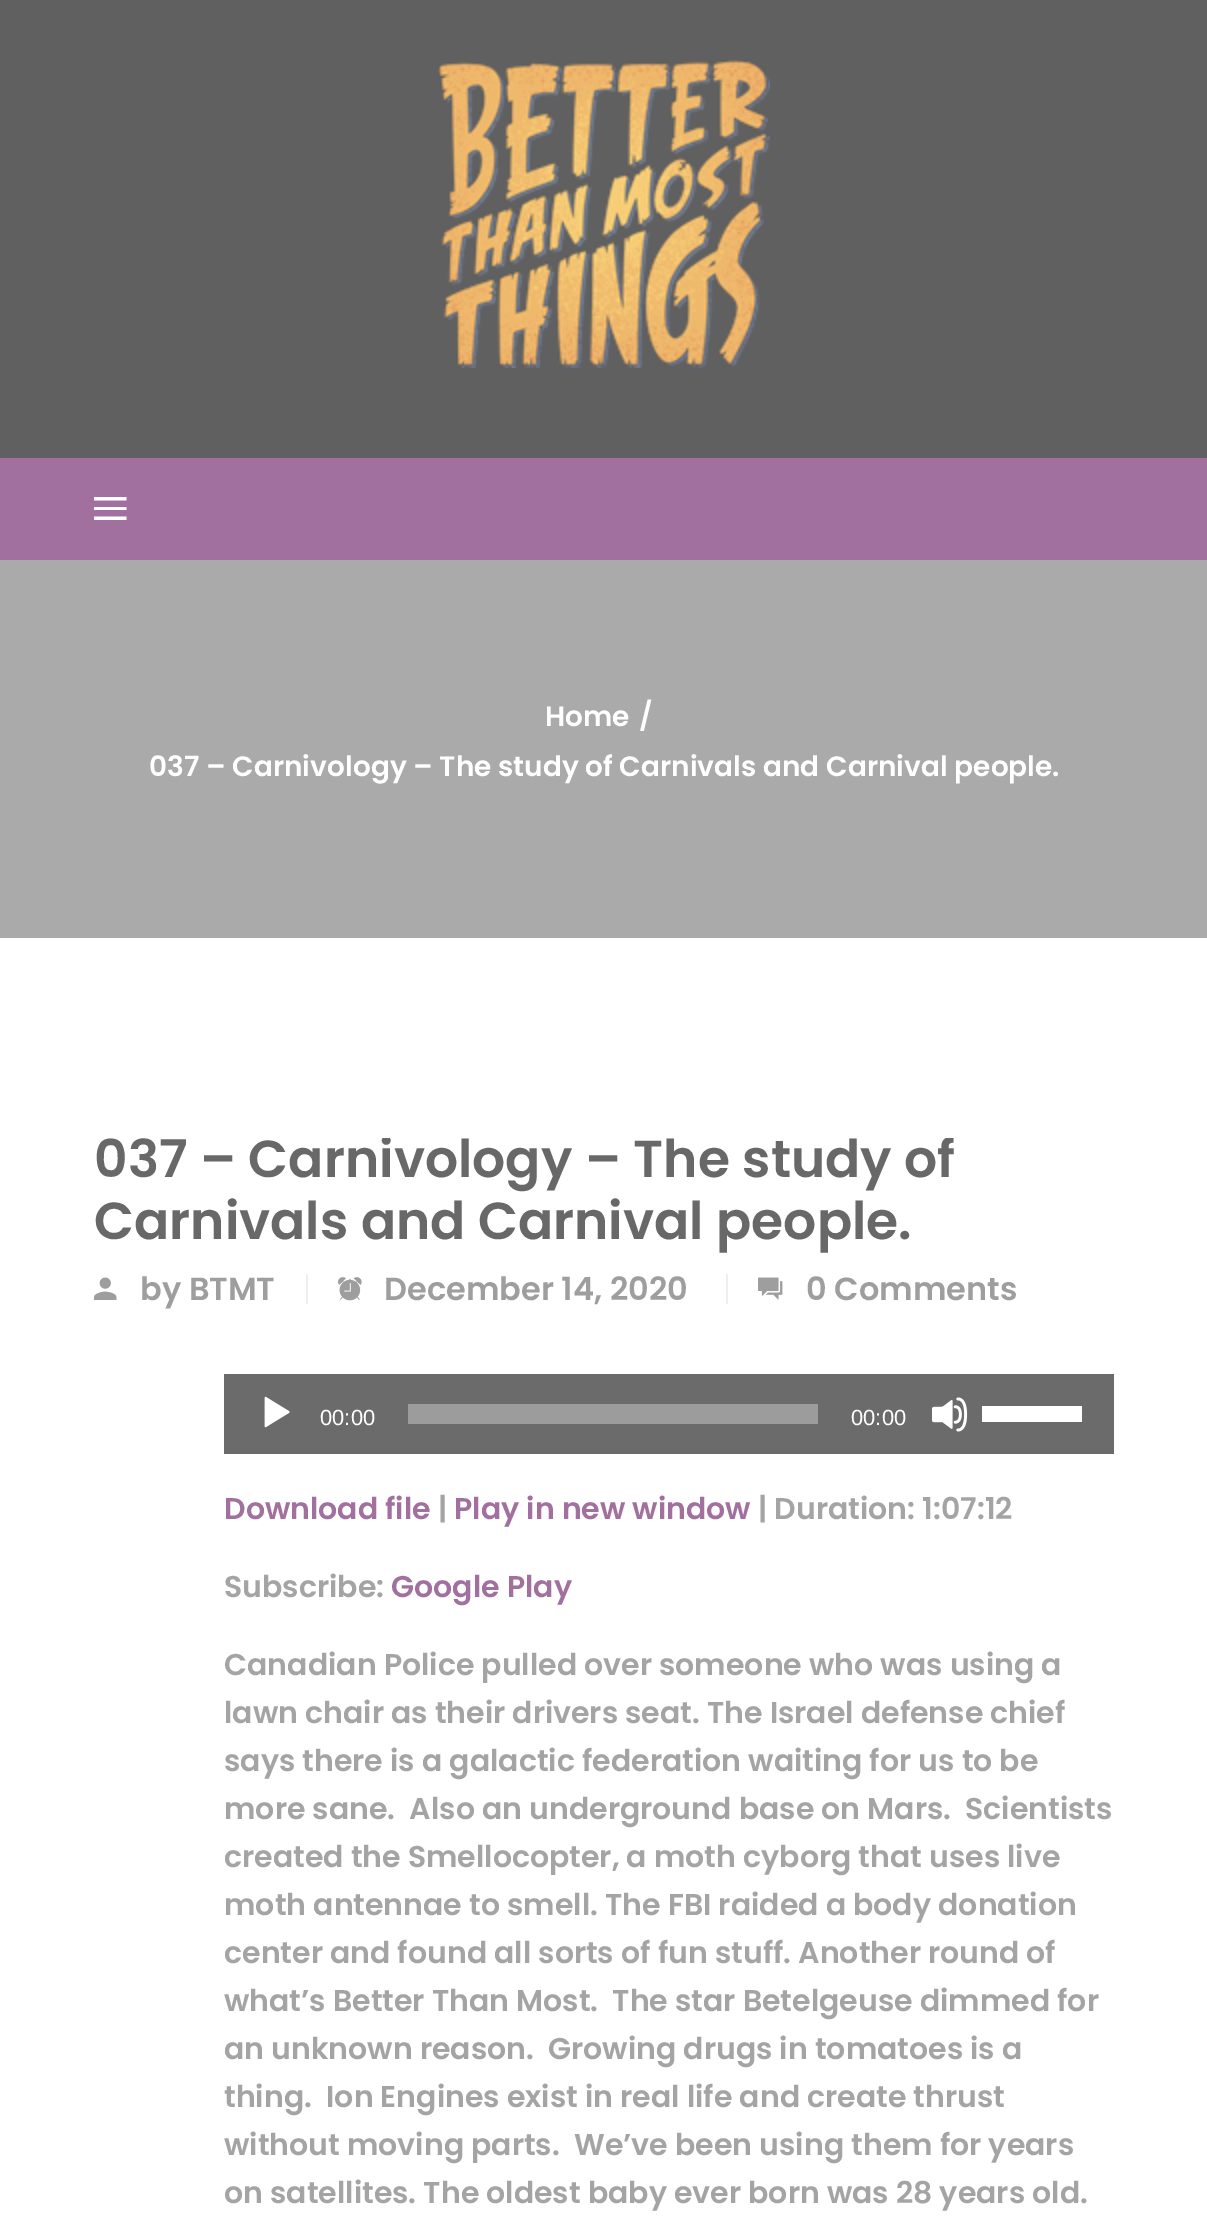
%!PS
<< /PageSize [1207 2220] >> setpagedevice
/mt/moveto load def
/li/lineto load def
/cp/closepath load def
/fl/fill load def
/gs/gsave load def
/gr/grestore load def
/co { dup -16 bitshift 255 div exch dup -8 bitshift 255 and 255 div exch 255 and 255 div setrgbcolor } def
/fn { [ exch dup neg 0 0 3 -1 roll 0 0 ] selectfont } def
/tx { co fn moveto show } def
/bx { co rectfill } def
/im { 5 dict begin { /h /w /y /x /name } { exch def } forall
  gsave x y translate w h scale
  w h 8 [w 0 0 h 0 0] name (r) file false 3 colorimage grestore end } def
0 2220 translate 1 -1 scale
4 setmiterlimit
0 0 1207 2220 16#FFFFFF bx
0 0 1207 458 16#606060 bx
(media/1.raw) 438 60 332 308 im
0 458 1207 102 16#A2709E bx
16#FFFFFF co
94 510 mt 94 507 li 126.5 507 li 126.5 510 li cp 94 500.5 mt 94 497 li 126.5 497 li 126.5 500.5 li cp 94 520 mt 94 516.5 li 126.5 516.5 li 126.5 520 li cp fl
0 560 1207 378 16#AAAAAA bx
(media/2.raw) 94 1277 23 23 im
306 1274 2 30 16#EFEFEF bx
(media/3.raw) 338 1277 24 24 im
726 1274 2 30 16#EFEFEF bx
(media/4.raw) 758 1277 25 23 im
224 1374 890 80 16#6B6B6B bx
(media/5.raw) 264 1396 26 32 im
408 1404 410 20 16#9C9C9C bx
(media/6.raw) 932 1397 36 35 im
982 1406 100 16 16#FFFFFF bx
(Home) 545 726 /Poppins-SemiBold 28 16#FFFFFF tx
(/) 639 726 /Poppins-SemiBold 28 16#FFFFFF tx
(037 – Carnivology – The study of Carnivals and Carnival people.) 149 776 /Poppins-SemiBold 28 16#FFFFFF tx
gs
94 1138 1020 176 rectclip
(037 – Carnivology – The study of) 94 1177 /Poppins-SemiBold 52 16#686868 tx
gr
(Carnivals and Carnival people.) 94 1239 /Poppins-SemiBold 52 16#686868 tx
(by BTMT) 140 1300 /Poppins-SemiBold 32 16#9E9E9E tx
(December 14, 2020) 384 1300 /Poppins-SemiBold 32 16#9E9E9E tx
(0 Comments) 806 1300 /Poppins-SemiBold 32 16#9E9E9E tx
(00:00) 320 1425 /LiberationSans-Regular 22 16#FFFFFF tx
(00:00) 851 1425 /LiberationSans-Regular 22 16#FFFFFF tx
(Download file) 224 1519 /Poppins-SemiBold 30 16#A2709E tx
(|) 438 1519 /Poppins-SemiBold 30 16#A4A4A4 tx
(Play in new window) 454 1519 /Poppins-SemiBold 30 16#A2709E tx
(| Duration: 1:07:12) 758 1519 /Poppins-SemiBold 30 16#A4A4A4 tx
(Subscribe:) 224 1597 /Poppins-SemiBold 30 16#A4A4A4 tx
(Google Play) 391 1597 /Poppins-SemiBold 30 16#A2709E tx
(Canadian Police pulled over someone who was using a) 224 1675 /Poppins-SemiBold 30 16#A4A4A4 tx
(lawn chair as their drivers seat. The Israel defense chief) 224 1723 /Poppins-SemiBold 30 16#A4A4A4 tx
(says there is a galactic federation waiting for us to be) 224 1771 /Poppins-SemiBold 30 16#A4A4A4 tx
(more sane.  Also an underground base on Mars.  Scientists) 224 1819 /Poppins-SemiBold 30 16#A4A4A4 tx
(created the Smellocopter, a moth cyborg that uses live) 224 1867 /Poppins-SemiBold 30 16#A4A4A4 tx
(moth antennae to smell. The FBI raided a body donation) 224 1915 /Poppins-SemiBold 30 16#A4A4A4 tx
(center and found all sorts of fun stuff. Another round of) 224 1963 /Poppins-SemiBold 30 16#A4A4A4 tx
(what’s Better Than Most.  The star Betelgeuse dimmed for) 224 2011 /Poppins-SemiBold 30 16#A4A4A4 tx
(an unknown reason.  Growing drugs in tomatoes is a) 224 2059 /Poppins-SemiBold 30 16#A4A4A4 tx
(thing.  Ion Engines exist in real life and create thrust) 224 2107 /Poppins-SemiBold 30 16#A4A4A4 tx
(without moving parts.  We’ve been using them for years) 224 2155 /Poppins-SemiBold 30 16#A4A4A4 tx
(on satellites. The oldest baby ever born was 28 years old.) 224 2203 /Poppins-SemiBold 30 16#A4A4A4 tx
showpage
